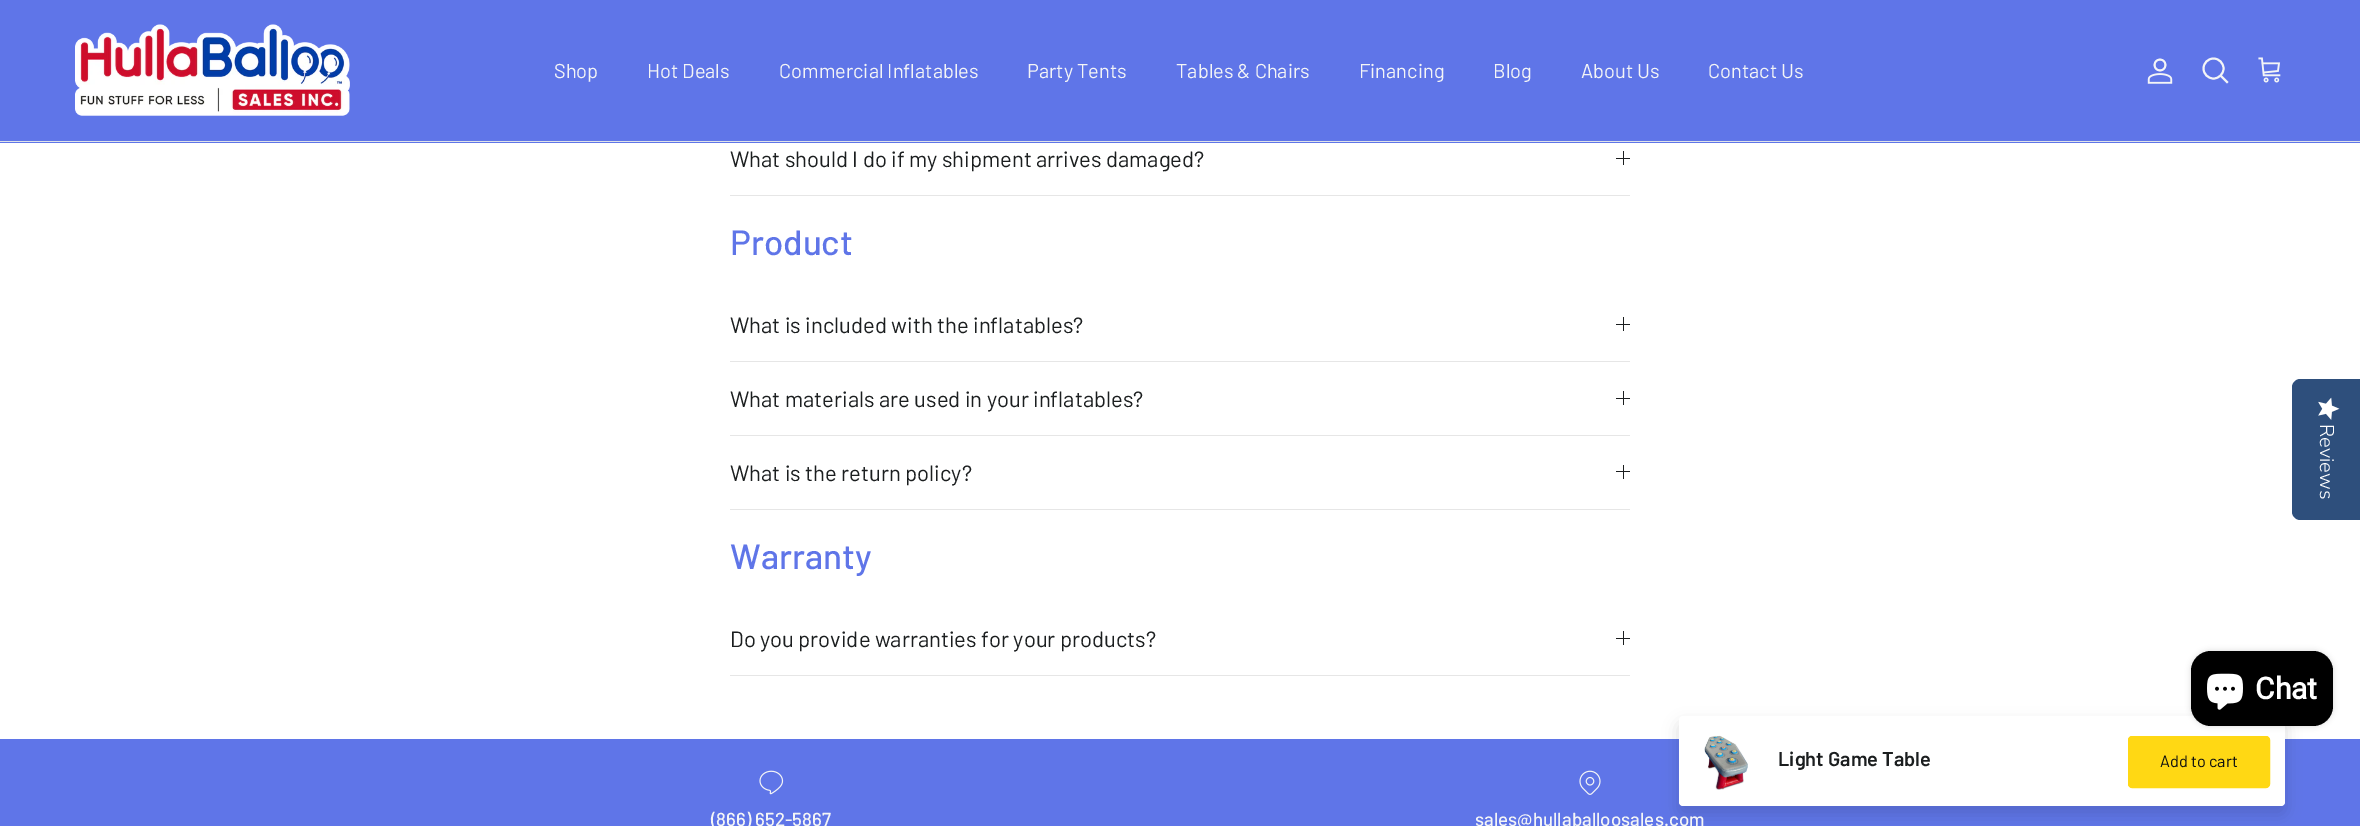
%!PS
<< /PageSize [2360 826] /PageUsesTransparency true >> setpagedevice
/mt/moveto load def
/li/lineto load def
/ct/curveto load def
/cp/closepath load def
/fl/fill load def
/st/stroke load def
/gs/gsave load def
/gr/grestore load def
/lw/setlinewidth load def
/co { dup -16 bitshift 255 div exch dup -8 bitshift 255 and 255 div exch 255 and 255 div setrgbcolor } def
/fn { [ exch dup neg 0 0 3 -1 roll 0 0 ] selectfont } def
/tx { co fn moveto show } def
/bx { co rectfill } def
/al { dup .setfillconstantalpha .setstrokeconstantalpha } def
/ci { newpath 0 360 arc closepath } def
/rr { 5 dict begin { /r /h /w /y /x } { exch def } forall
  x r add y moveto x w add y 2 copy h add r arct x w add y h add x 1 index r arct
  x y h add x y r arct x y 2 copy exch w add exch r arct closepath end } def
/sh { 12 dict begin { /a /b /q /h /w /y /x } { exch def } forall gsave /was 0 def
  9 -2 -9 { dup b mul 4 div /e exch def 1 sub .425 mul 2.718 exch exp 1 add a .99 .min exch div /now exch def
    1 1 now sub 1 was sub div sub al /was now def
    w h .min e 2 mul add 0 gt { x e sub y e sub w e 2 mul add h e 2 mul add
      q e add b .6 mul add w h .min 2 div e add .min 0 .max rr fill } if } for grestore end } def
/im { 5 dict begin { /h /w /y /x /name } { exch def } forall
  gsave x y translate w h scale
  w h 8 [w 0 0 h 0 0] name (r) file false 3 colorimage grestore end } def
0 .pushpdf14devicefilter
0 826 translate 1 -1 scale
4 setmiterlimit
0 0 2360 826 16#FFFFFF bx
0 0 2360 143 16#5F75E8 bx
0 141 2360 1 16#DFE3E8 bx
(media/1.raw) 75 24 275 92 im
(media/2.raw) 2147 58 26 26 im
16#F4F5F6 co
1.9 lw
2213.5 68.5 10 ci st
2 setlinecap
2221 76 mt 2227 82 li st
(media/3.raw) 2258 57 23 26 im
730 195 900 1 16#E6E6E6 bx
1623 151 1 14 16#1B1E1F bx
1616 158 14 1 16#1B1E1F bx
730 361 900 1 16#E6E6E6 bx
1623 317 1 14 16#1B1E1F bx
1616 324 14 1 16#1B1E1F bx
730 435 900 1 16#E6E6E6 bx
1623 391 1 14 16#1B1E1F bx
1616 398 14 1 16#1B1E1F bx
730 509 900 1 16#E6E6E6 bx
1623 465 1 14 16#1B1E1F bx
1616 471 14 1 16#1B1E1F bx
730 675 900 1 16#E6E6E6 bx
1623 631 1 14 16#1B1E1F bx
1616 638 14 1 16#1B1E1F bx
0 739 2360 87 16#5F75E8 bx
16#000000 co
1678 723 608 92 5 7.5 .12 sh
16#FFFFFF co
1679 716 606 90 4 rr fl
(media/4.raw) 1704 735 44 55 im
16#FFD814 co
2128.5 736.5 141 51 3.5 rr gs fl gr
1 lw
0 setlinecap
st
16#2E4F7C co
2360 379 mt 2360 520 li 2300 520 li 2296 520 2292 516 2292 512 ct 2292 387 li 2292 383 2296 379 2300 379 ct cp fl
(media/5.raw) 2318 397 22 23 im
16#000000 co
2191 651 142 75 20 3 .15 sh
2191 651 142 75 20 rr fl
(media/6.raw) 2207 673 36 37 im
(media/7.raw) 759 770 25 25 im
(media/8.raw) 1579 770 22 25 im
(Shop) 554 78 /Barlow-Regular 20 16#F4F5F6 tx
(Hot Deals) 647 78 /Barlow-Regular 20 16#F4F5F6 tx
(Commercial Inflatables) 779 78 /Barlow-Regular 20 16#F4F5F6 tx
(Party Tents) 1027 78 /Barlow-Regular 20 16#F4F5F6 tx
(Tables & Chairs) 1176 78 /Barlow-Regular 20 16#F4F5F6 tx
(Financing) 1359 78 /Barlow-Regular 20 16#F4F5F6 tx
(Blog) 1493 78 /Barlow-Regular 20 16#F4F5F6 tx
(About Us) 1581 78 /Barlow-Regular 20 16#F4F5F6 tx
(Contact Us) 1708 78 /Barlow-Regular 20 16#F4F5F6 tx
(What should I do if my shipment arrives damaged?) 730 167 /Barlow-Regular 22 16#1B1E1F tx
(Product) 730 255 /Barlow-Medium 35 16#5F75E8 tx
(What is included with the inflatables?) 730 333 /Barlow-Regular 22 16#1B1E1F tx
(What materials are used in your inflatables?) 730 407 /Barlow-Regular 22 16#1B1E1F tx
(What is the return policy?) 730 481 /Barlow-Regular 22 16#1B1E1F tx
(Warranty) 730 569 /Barlow-Medium 35 16#5F75E8 tx
(Do you provide warranties for your products?) 730 647 /Barlow-Regular 22 16#1B1E1F tx
(Light Game Table) 1778 766 /Barlow-SemiBold 20 16#1B1E1F tx
(Add to cart) 2160 767 /Barlow-Regular 16.25 16#0F1111 tx
/NunitoSans-Light 20 fn
16#FFFFFF co
gs 2320 424 translate 90 rotate 0 0 mt (Reviews) show gr
(Chat) 2255 699 /Roboto-Bold 30 16#FFFFFF tx
(\(866\) 652-5867) 711 826 /Barlow-Medium 18.75 16#F4F5F6 tx
(sales@hullaballoosales.com) 1475 826 /Barlow-Medium 18.75 16#F4F5F6 tx
.poppdf14devicefilter showpage
